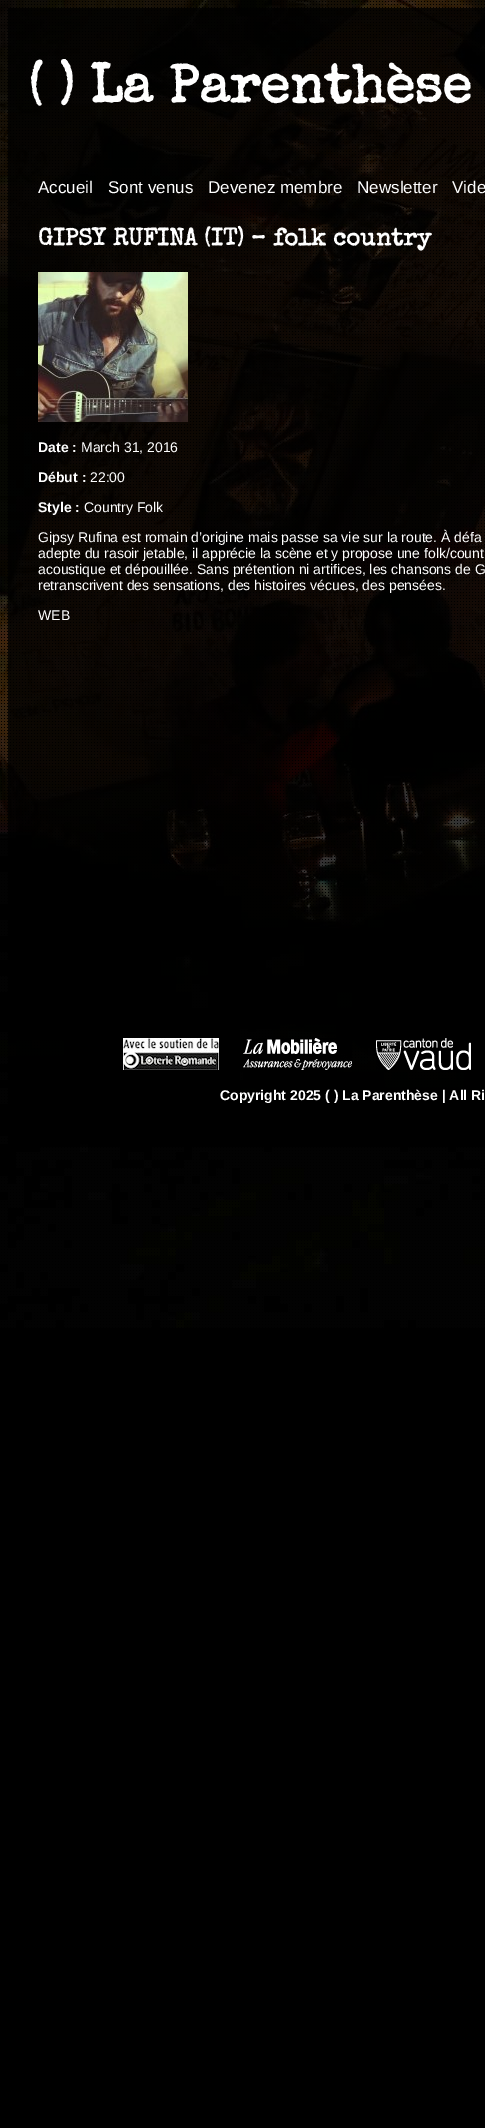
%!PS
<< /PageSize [485 2128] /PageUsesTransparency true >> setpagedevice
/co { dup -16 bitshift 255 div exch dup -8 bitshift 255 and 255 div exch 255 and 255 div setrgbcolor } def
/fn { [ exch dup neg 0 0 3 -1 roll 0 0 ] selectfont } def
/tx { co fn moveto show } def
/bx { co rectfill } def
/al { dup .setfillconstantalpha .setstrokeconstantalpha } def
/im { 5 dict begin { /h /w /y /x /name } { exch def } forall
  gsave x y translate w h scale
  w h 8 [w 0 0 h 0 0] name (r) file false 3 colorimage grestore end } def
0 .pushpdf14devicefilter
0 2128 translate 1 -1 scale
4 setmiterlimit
0 0 485 2128 16#000000 bx
(media/1.raw) 0 0 485 1328 im
(media/2.raw) 1 1 484 1327 im
0.8 al
8 8 477 1139 16#000000 bx
1 al
(media/3.raw) 38 272 150 150 im
(media/4.raw) 123 1038 96 32 im
(media/5.raw) 243 1038 109 32 im
(media/6.raw) 376 1038 95 32 im
(\( \) La Parenthèse) 28 102 /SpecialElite-Bold 54 16#FFFFFF tx
(Accueil) 38 193 /LiberationSans-Regular 17 16#FFFFFF tx
(Sont venus) 108 193 /LiberationSans-Regular 17 16#FFFFFF tx
(Devenez membre) 208 193 /LiberationSans-Regular 17 16#FFFFFF tx
(Newsletter) 357 193 /LiberationSans-Regular 17 16#FFFFFF tx
(Vide) 452 193 /LiberationSans-Regular 17 16#FFFFFF tx
(GIPSY RUFINA \(IT\) – folk country) 38 245 /SpecialElite-Bold 24 16#FFFFFF tx
(Date :) 38 452 /LiberationSans-Bold 14 16#FFFFFF tx
(March 31, 2016) 81 452 /LiberationSans-Regular 14 16#FFFFFF tx
(Début :) 38 482 /LiberationSans-Bold 14 16#FFFFFF tx
(22:00) 90 482 /LiberationSans-Regular 14 16#FFFFFF tx
(Style :) 38 512 /LiberationSans-Bold 14 16#FFFFFF tx
(Country Folk) 84 512 /LiberationSans-Regular 14 16#FFFFFF tx
(Gipsy Rufina est romain d’origine mais passe sa vie sur la route. À défa) 38 542 /LiberationSans-Regular 14 16#FFFFFF tx
(adepte du rasoir jetable, il apprécie la scène et y propose une folk/count) 38 558 /LiberationSans-Regular 14 16#FFFFFF tx
(acoustique et dépouillée. Sans prétention ni artifices, les chansons de G) 38 574 /LiberationSans-Regular 14 16#FFFFFF tx
(retranscrivent des sensations, des histoires vécues, des pensées.) 38 590 /LiberationSans-Regular 14 16#FFFFFF tx
(WEB) 38 620 /LiberationSans-Regular 14 16#FFFFFF tx
(Copyright 2025 \( \) La Parenthèse | All Ri) 220 1100 /LiberationSans-Bold 14 16#FFFFFF tx
.poppdf14devicefilter showpage
